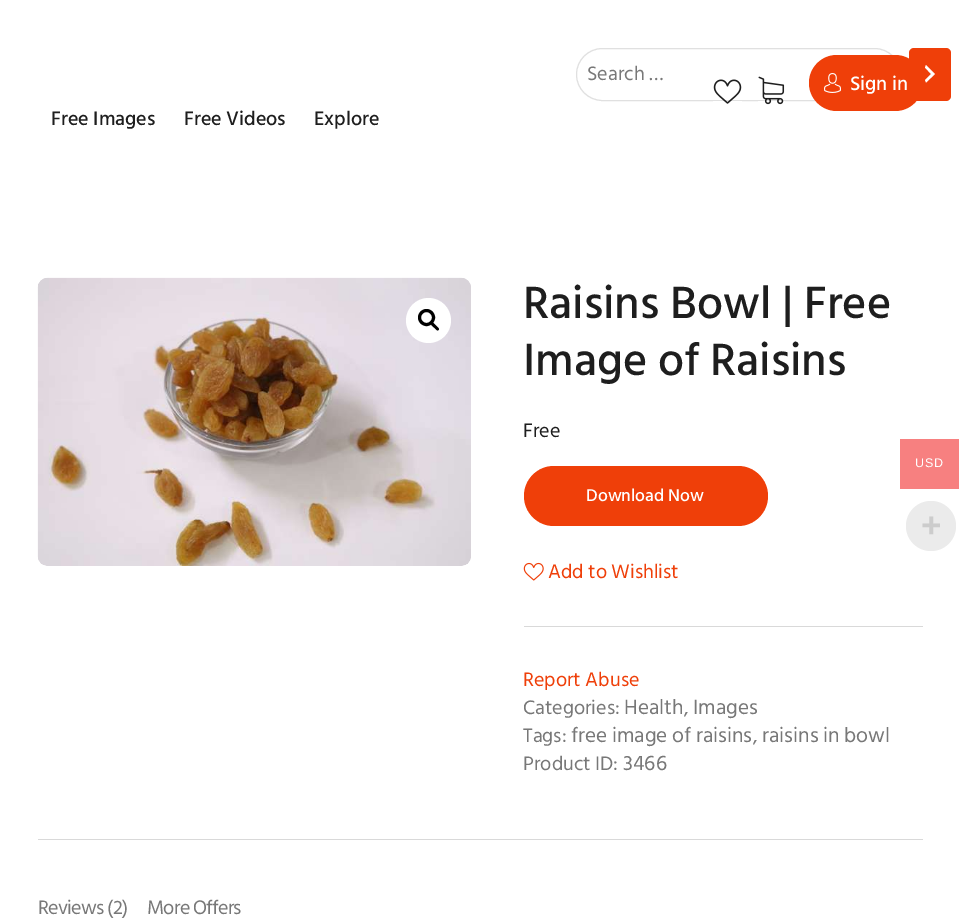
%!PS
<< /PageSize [959 923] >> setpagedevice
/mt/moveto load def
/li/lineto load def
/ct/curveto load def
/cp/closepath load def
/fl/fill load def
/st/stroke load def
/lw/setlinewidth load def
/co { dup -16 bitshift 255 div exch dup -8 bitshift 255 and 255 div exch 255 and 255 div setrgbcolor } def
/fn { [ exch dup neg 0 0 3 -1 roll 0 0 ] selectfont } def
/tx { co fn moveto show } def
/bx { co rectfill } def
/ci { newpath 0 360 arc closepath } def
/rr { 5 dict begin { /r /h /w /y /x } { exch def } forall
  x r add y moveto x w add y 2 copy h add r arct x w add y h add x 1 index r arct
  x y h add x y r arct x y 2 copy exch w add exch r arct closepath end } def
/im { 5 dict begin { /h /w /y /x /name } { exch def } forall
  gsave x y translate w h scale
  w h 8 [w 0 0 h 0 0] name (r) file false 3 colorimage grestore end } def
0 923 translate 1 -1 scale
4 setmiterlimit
0 0 959 923 16#FFFFFF bx
16#E0E0E0 co
576.5 48.5 324 52 26 rr st
16#EF3F09 co
909 48 42 53 5 rr fl
16#FFFFFF co
925 80 mt 931 74 li 925 67.5 li 926 65 li 935 74 li 926 82.5 li cp fl
(media/1.raw) 713 79 29 25 im
(media/2.raw) 758 76 27 29 im
16#EF3F09 co
809 55 114 56 28 rr fl
(media/3.raw) 824 73 17 20 im
(media/4.raw) 37 277 434 289 im
16#FFFFFF co
428.5 320.5 22.5 ci fl
16#000000 co
3 lw
426.5 317.5 7 ci st
431.5 323 mt 433 321.5 435 325 436 325.5 ct 436.5 326.5 440 328.5 438.5 330 ct 437 331.5 435 328 434 327.5 ct 433 326.5 430 324.5 431.5 323 ct cp fl
16#EF3F09 co
524 466 244 60 30 rr fl
(media/5.raw) 523 562 21 19 im
524 626 399 1 16#D9D9D9 bx
38 839 885 1 16#D9D9D9 bx
900 439 59 50 16#F78080 bx
16#EBEBEB co
931 526 25 ci fl
(Search …) 587 80 /HindSiliguri-Regular 20 16#787878 tx
(Sign in) 850 90 /HindSiliguri-Medium 20 16#FFFFFF tx
(Free Images) 51 125 /HindSiliguri-Medium 20 16#1E1E1E tx
(Free Videos) 184 125 /HindSiliguri-Medium 20 16#1E1E1E tx
(Explore) 314 125 /HindSiliguri-Medium 20 16#1E1E1E tx
(Raisins Bowl | Free) 523 318 /HindSiliguri-Medium 46.25 16#1E1E1E tx
(Image of Raisins) 523 375 /HindSiliguri-Medium 46.25 16#1E1E1E tx
(Free) 523 437 /HindSiliguri-Regular 20 16#1E1E1E tx
(Download Now) 586 501 /HindSiliguri-Medium 17.5 16#FFFFFF tx
(Add to Wishlist) 548 578 /HindSiliguri-Regular 20 16#EF3F09 tx
(Report Abuse) 523 686 /HindSiliguri-Regular 20 16#EF3F09 tx
(Categories:) 523 714 /HindSiliguri-Regular 20 16#787878 tx
(Health) 624 714 /HindSiliguri-Regular 21.25 16#787878 tx
(,) 684 714 /HindSiliguri-Regular 20 16#787878 tx
(Images) 693 714 /HindSiliguri-Regular 21.25 16#787878 tx
(Tags:) 523 742 /HindSiliguri-Regular 20 16#787878 tx
(free image of raisins) 571 742 /HindSiliguri-Regular 21.25 16#787878 tx
(,) 753 742 /HindSiliguri-Regular 20 16#787878 tx
(raisins in bowl) 762 742 /HindSiliguri-Regular 21.25 16#787878 tx
(Product ID:) 523 770 /HindSiliguri-Regular 20 16#787878 tx
(3466) 623 770 /HindSiliguri-Regular 21.25 16#787878 tx
/HindSiliguri-Regular 20 fn
38 914 mt -.75 0 (Reviews \(2\)) ashow
147 914 mt -.75 0 (More Offers) ashow
/LiberationSans-Regular 12.5 fn
16#FFFFFF co
915 467 mt 1 0 (USD) ashow
(+) 921 537 /LiberationSans-Bold 35 16#CCCCCC tx
showpage
